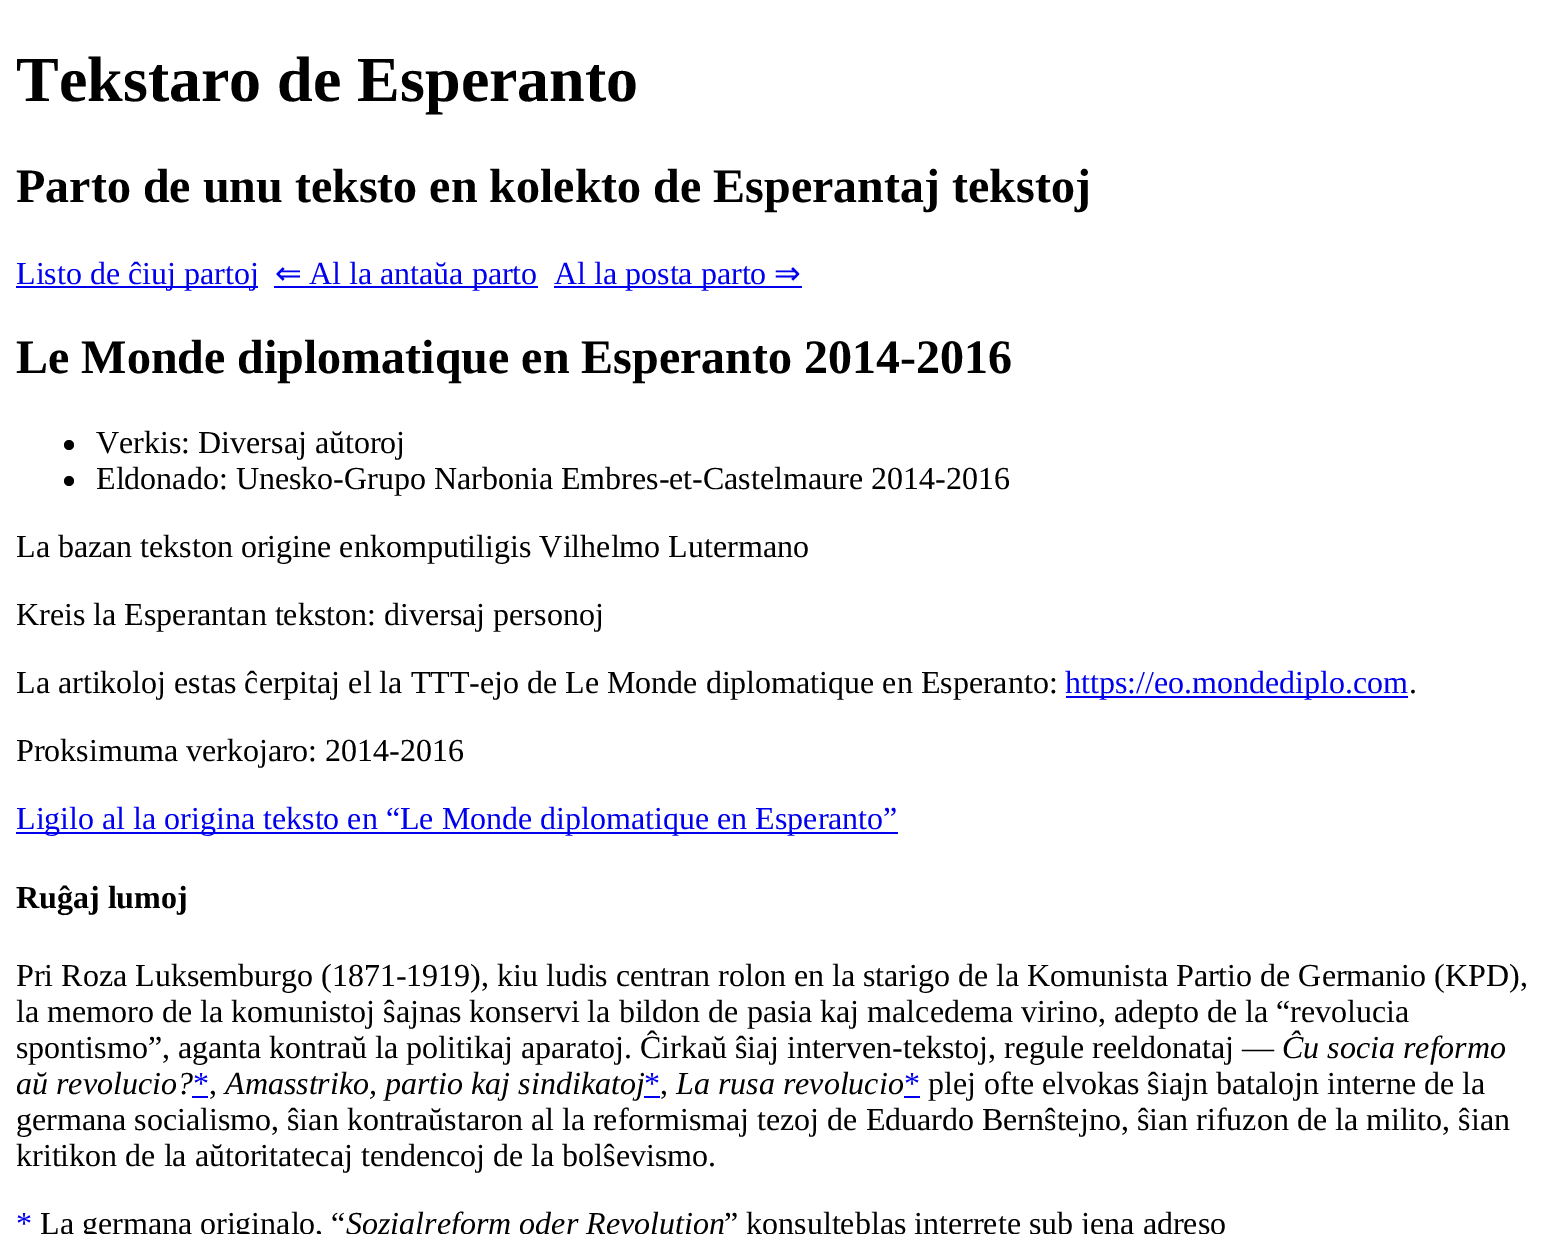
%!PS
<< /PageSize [1543 1234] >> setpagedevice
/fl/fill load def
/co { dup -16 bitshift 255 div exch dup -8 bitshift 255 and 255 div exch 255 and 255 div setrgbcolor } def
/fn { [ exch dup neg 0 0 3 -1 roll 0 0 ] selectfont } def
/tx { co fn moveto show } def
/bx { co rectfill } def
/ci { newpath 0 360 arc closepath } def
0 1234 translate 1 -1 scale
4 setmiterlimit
0 0 1543 1234 16#FFFFFF bx
16 286 242 2 16#0000EE bx
274 286 264 2 16#0000EE bx
554 286 248 2 16#0000EE bx
16#000000 co
69 445 5 ci fl
69 481 5 ci fl
1066 696 342 2 16#0000EE bx
16 832 882 2 16#0000EE bx
192 1096 16 2 16#0000EE bx
644 1096 16 2 16#0000EE bx
904 1096 16 2 16#0000EE bx
(Tekstaro de Esperanto) 16 101 /LiberationSerif-Bold 64 16#000000 tx
(Parto de unu teksto en kolekto de Esperantaj tekstoj) 16 202 /LiberationSerif-Bold 48 16#000000 tx
(Listo de ĉiuj partoj) 16 284 /LiberationSerif-Regular 32 16#0000EE tx
(⇐) 275 284 /DejaVuSans-Regular 32 16#0000EE tx
(Al la antaŭa parto) 309 284 /LiberationSerif-Regular 32 16#0000EE tx
(Al la posta parto) 554 284 /LiberationSerif-Regular 32 16#0000EE tx
(⇒) 774 284 /DejaVuSans-Regular 32 16#0000EE tx
(Le Monde diplomatique en Esperanto 2014-2016) 16 373 /LiberationSerif-Bold 48 16#000000 tx
(Verkis: Diversaj aŭtoroj) 96 453 /LiberationSerif-Regular 32 16#000000 tx
(Eldonado: Unesko-Grupo Narbonia Embres-et-Castelmaure 2014-2016) 96 489 /LiberationSerif-Regular 32 16#000000 tx
(La bazan tekston origine enkomputiligis Vilhelmo Lutermano) 16 557 /LiberationSerif-Regular 32 16#000000 tx
(Kreis la Esperantan tekston: diversaj personoj) 16 625 /LiberationSerif-Regular 32 16#000000 tx
(La artikoloj estas ĉerpitaj el la TTT-ejo de Le Monde diplomatique en Esperanto:) 16 693 /LiberationSerif-Regular 32 16#000000 tx
(https://eo.mondediplo.com) 1065 693 /LiberationSerif-Regular 32 16#0000EE tx
(.) 1409 693 /LiberationSerif-Regular 32 16#000000 tx
(Proksimuma verkojaro: 2014-2016) 16 761 /LiberationSerif-Regular 32 16#000000 tx
(Ligilo al la origina teksto en “Le Monde diplomatique en Esperanto”) 16 829 /LiberationSerif-Regular 32 16#0000EE tx
(Ruĝaj lumoj) 16 908 /LiberationSerif-Bold 32 16#000000 tx
(Pri Roza Luksemburgo \(1871-1919\), kiu ludis centran rolon en la starigo de la Komunista Partio de Germanio \(KPD\),) 16 986 /LiberationSerif-Regular 32 16#000000 tx
(la memoro de la komunistoj ŝajnas konservi la bildon de pasia kaj malcedema virino, adepto de la “revolucia) 16 1022 /LiberationSerif-Regular 32 16#000000 tx
(spontismo”, aganta kontraŭ la politikaj aparatoj. Ĉirkaŭ ŝiaj interven-tekstoj, regule reeldonataj —) 16 1058 /LiberationSerif-Regular 32 16#000000 tx
(Ĉu socia reformo) 1282 1058 /LiberationSerif-Italic 32 16#000000 tx
(aŭ revolucio?) 16 1094 /LiberationSerif-Italic 32 16#000000 tx
(*) 193 1094 /LiberationSerif-Regular 32 16#0000EE tx
(Amasstriko, partio kaj sindikatoj) 225 1094 /LiberationSerif-Italic 32 16#000000 tx
(*) 644 1094 /LiberationSerif-Regular 32 16#0000EE tx
(La rusa revolucio) 676 1094 /LiberationSerif-Italic 32 16#000000 tx
(*) 904 1094 /LiberationSerif-Regular 32 16#0000EE tx
(plej ofte elvokas ŝiajn batalojn interne de la) 928 1094 /LiberationSerif-Regular 32 16#000000 tx
(,) 209 1094 /LiberationSerif-Regular 32 16#000000 tx
(,) 660 1094 /LiberationSerif-Regular 32 16#000000 tx
(germana socialismo, ŝian kontraŭstaron al la reformismaj tezoj de Eduardo Bernŝtejno, ŝian rifuzon de la milito, ŝian) 16 1130 /LiberationSerif-Regular 32 16#000000 tx
(kritikon de la aŭtoritatecaj tendencoj de la bolŝevismo.) 16 1166 /LiberationSerif-Regular 32 16#000000 tx
(*) 16 1234 /LiberationSerif-Regular 32 16#0000EE tx
(La germana originalo, “) 40 1234 /LiberationSerif-Regular 32 16#000000 tx
(Sozialreform oder Revolution) 346 1234 /LiberationSerif-Italic 32 16#000000 tx
(” konsulteblas interrete sub jena adreso) 724 1234 /LiberationSerif-Regular 32 16#000000 tx
showpage
